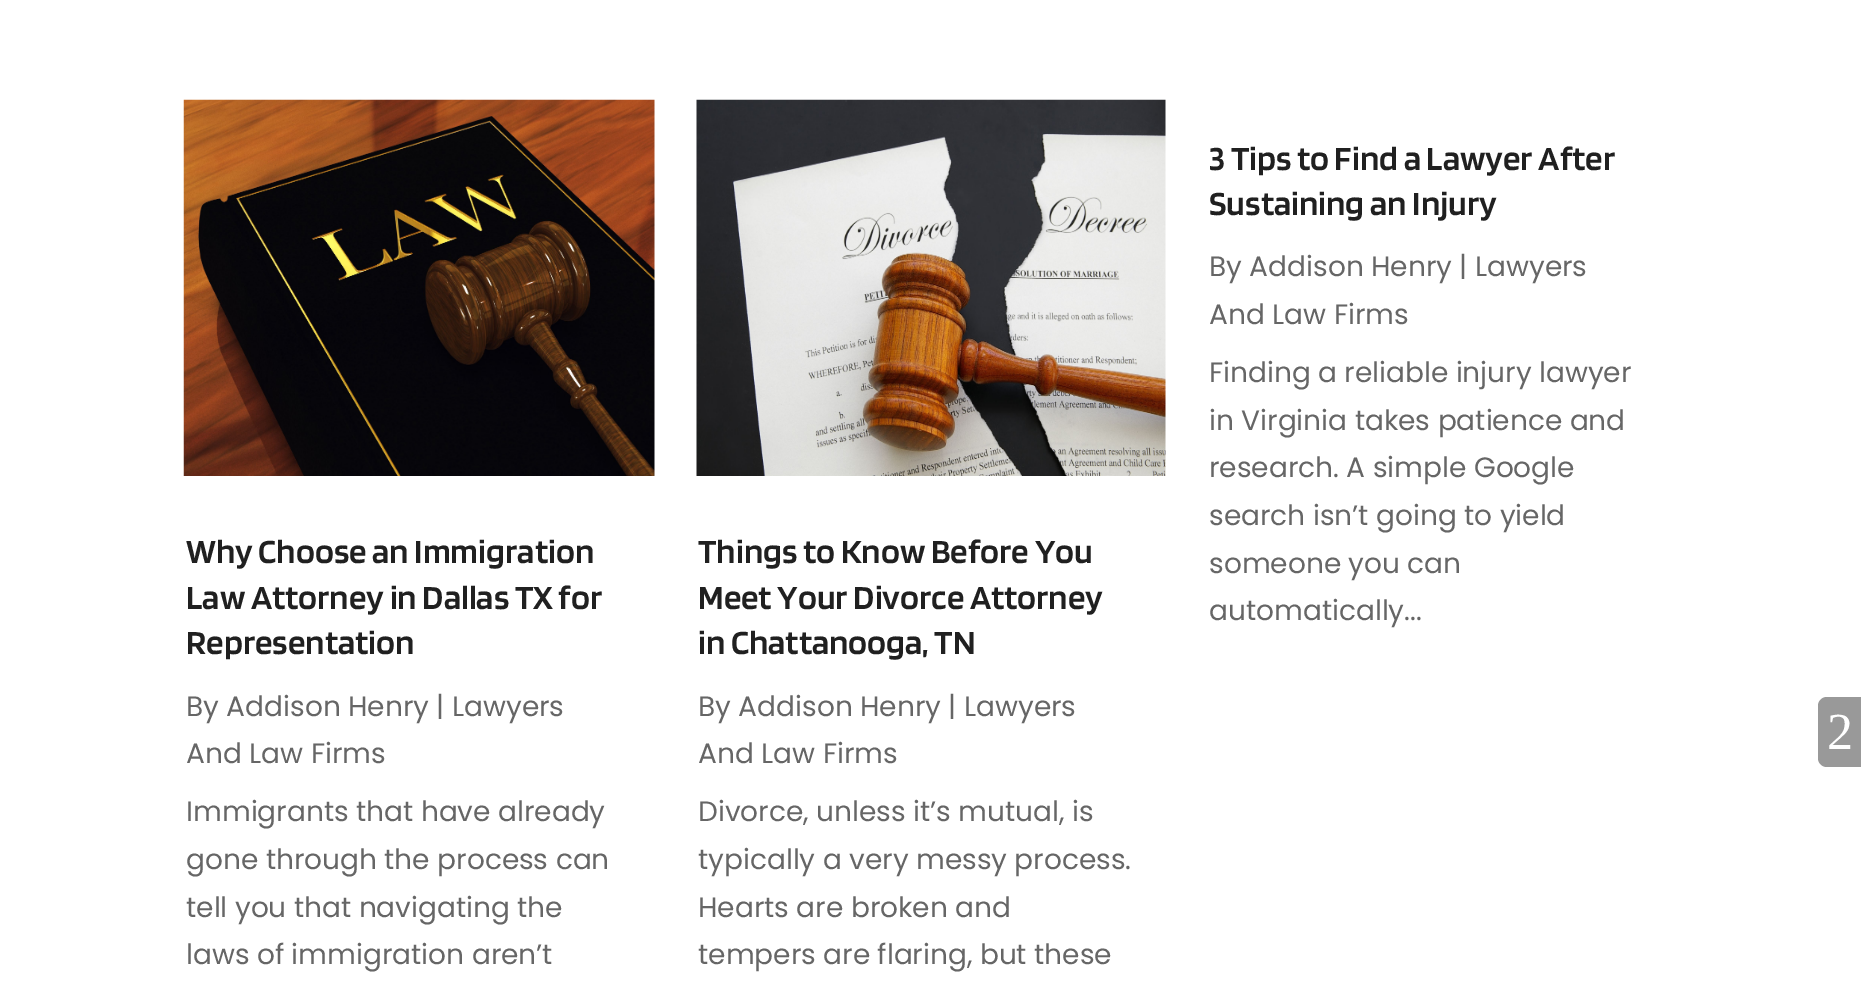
%!PS
<< /PageSize [1861 984] >> setpagedevice
/mt/moveto load def
/li/lineto load def
/ct/curveto load def
/cp/closepath load def
/fl/fill load def
/co { dup -16 bitshift 255 div exch dup -8 bitshift 255 and 255 div exch 255 and 255 div setrgbcolor } def
/fn { [ exch dup neg 0 0 3 -1 roll 0 0 ] selectfont } def
/tx { co fn moveto show } def
/bx { co rectfill } def
/im { 5 dict begin { /h /w /y /x /name } { exch def } forall
  gsave x y translate w h scale
  w h 8 [w 0 0 h 0 0] name (r) file false 3 colorimage grestore end } def
0 984 translate 1 -1 scale
4 setmiterlimit
0 0 1861 984 16#FFFFFF bx
(media/1.raw) 183 99 472 377 im
(media/2.raw) 696 99 470 377 im
16#999999 co
1827 697 mt 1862 697 li 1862 767 li 1827 767 li 1822 767 1818 763 1818 758 ct 1818 706 li 1818 701 1822 697 1827 697 ct cp fl
(3 Tips to Find a Lawyer After) 1209 170 /Blinker-SemiBold 35 16#202020 tx
(Sustaining an Injury) 1209 215 /Blinker-SemiBold 35 16#202020 tx
(By Addison Henry | Lawyers) 1209 276 /Poppins-Regular 28 16#666666 tx
(And Law Firms) 1209 324 /Poppins-Regular 28 16#666666 tx
(Finding a reliable injury lawyer) 1209 382 /Poppins-Regular 28 16#666666 tx
(in Virginia takes patience and) 1209 430 /Poppins-Regular 28 16#666666 tx
(research. A simple Google) 1209 477 /Poppins-Regular 28 16#666666 tx
(search isn’t going to yield) 1209 525 /Poppins-Regular 28 16#666666 tx
(someone you can) 1209 573 /Poppins-Regular 28 16#666666 tx
(automatically...) 1209 620 /Poppins-Regular 28 16#666666 tx
(Why Choose an Immigration) 186 563 /Blinker-SemiBold 35 16#202020 tx
(Law Attorney in Dallas TX for) 186 609 /Blinker-SemiBold 35 16#202020 tx
(Representation) 186 654 /Blinker-SemiBold 35 16#202020 tx
(By Addison Henry | Lawyers) 186 716 /Poppins-Regular 28 16#666666 tx
(And Law Firms) 186 763 /Poppins-Regular 28 16#666666 tx
(Immigrants that have already) 186 821 /Poppins-Regular 28 16#666666 tx
(gone through the process can) 186 869 /Poppins-Regular 28 16#666666 tx
(tell you that navigating the) 186 917 /Poppins-Regular 28 16#666666 tx
(laws of immigration aren’t) 186 964 /Poppins-Regular 28 16#666666 tx
(Things to Know Before You) 698 563 /Blinker-SemiBold 35 16#202020 tx
(Meet Your Divorce Attorney) 698 609 /Blinker-SemiBold 35 16#202020 tx
(in Chattanooga, TN) 698 654 /Blinker-SemiBold 35 16#202020 tx
(By Addison Henry | Lawyers) 698 716 /Poppins-Regular 28 16#666666 tx
(And Law Firms) 698 763 /Poppins-Regular 28 16#666666 tx
(Divorce, unless it’s mutual, is) 698 821 /Poppins-Regular 28 16#666666 tx
(typically a very messy process.) 698 869 /Poppins-Regular 28 16#666666 tx
(Hearts are broken and) 698 917 /Poppins-Regular 28 16#666666 tx
(tempers are flaring, but these) 698 964 /Poppins-Regular 28 16#666666 tx
(2) 1827 749 /LiberationSerif-Regular 52 16#FFFFFF tx
showpage
